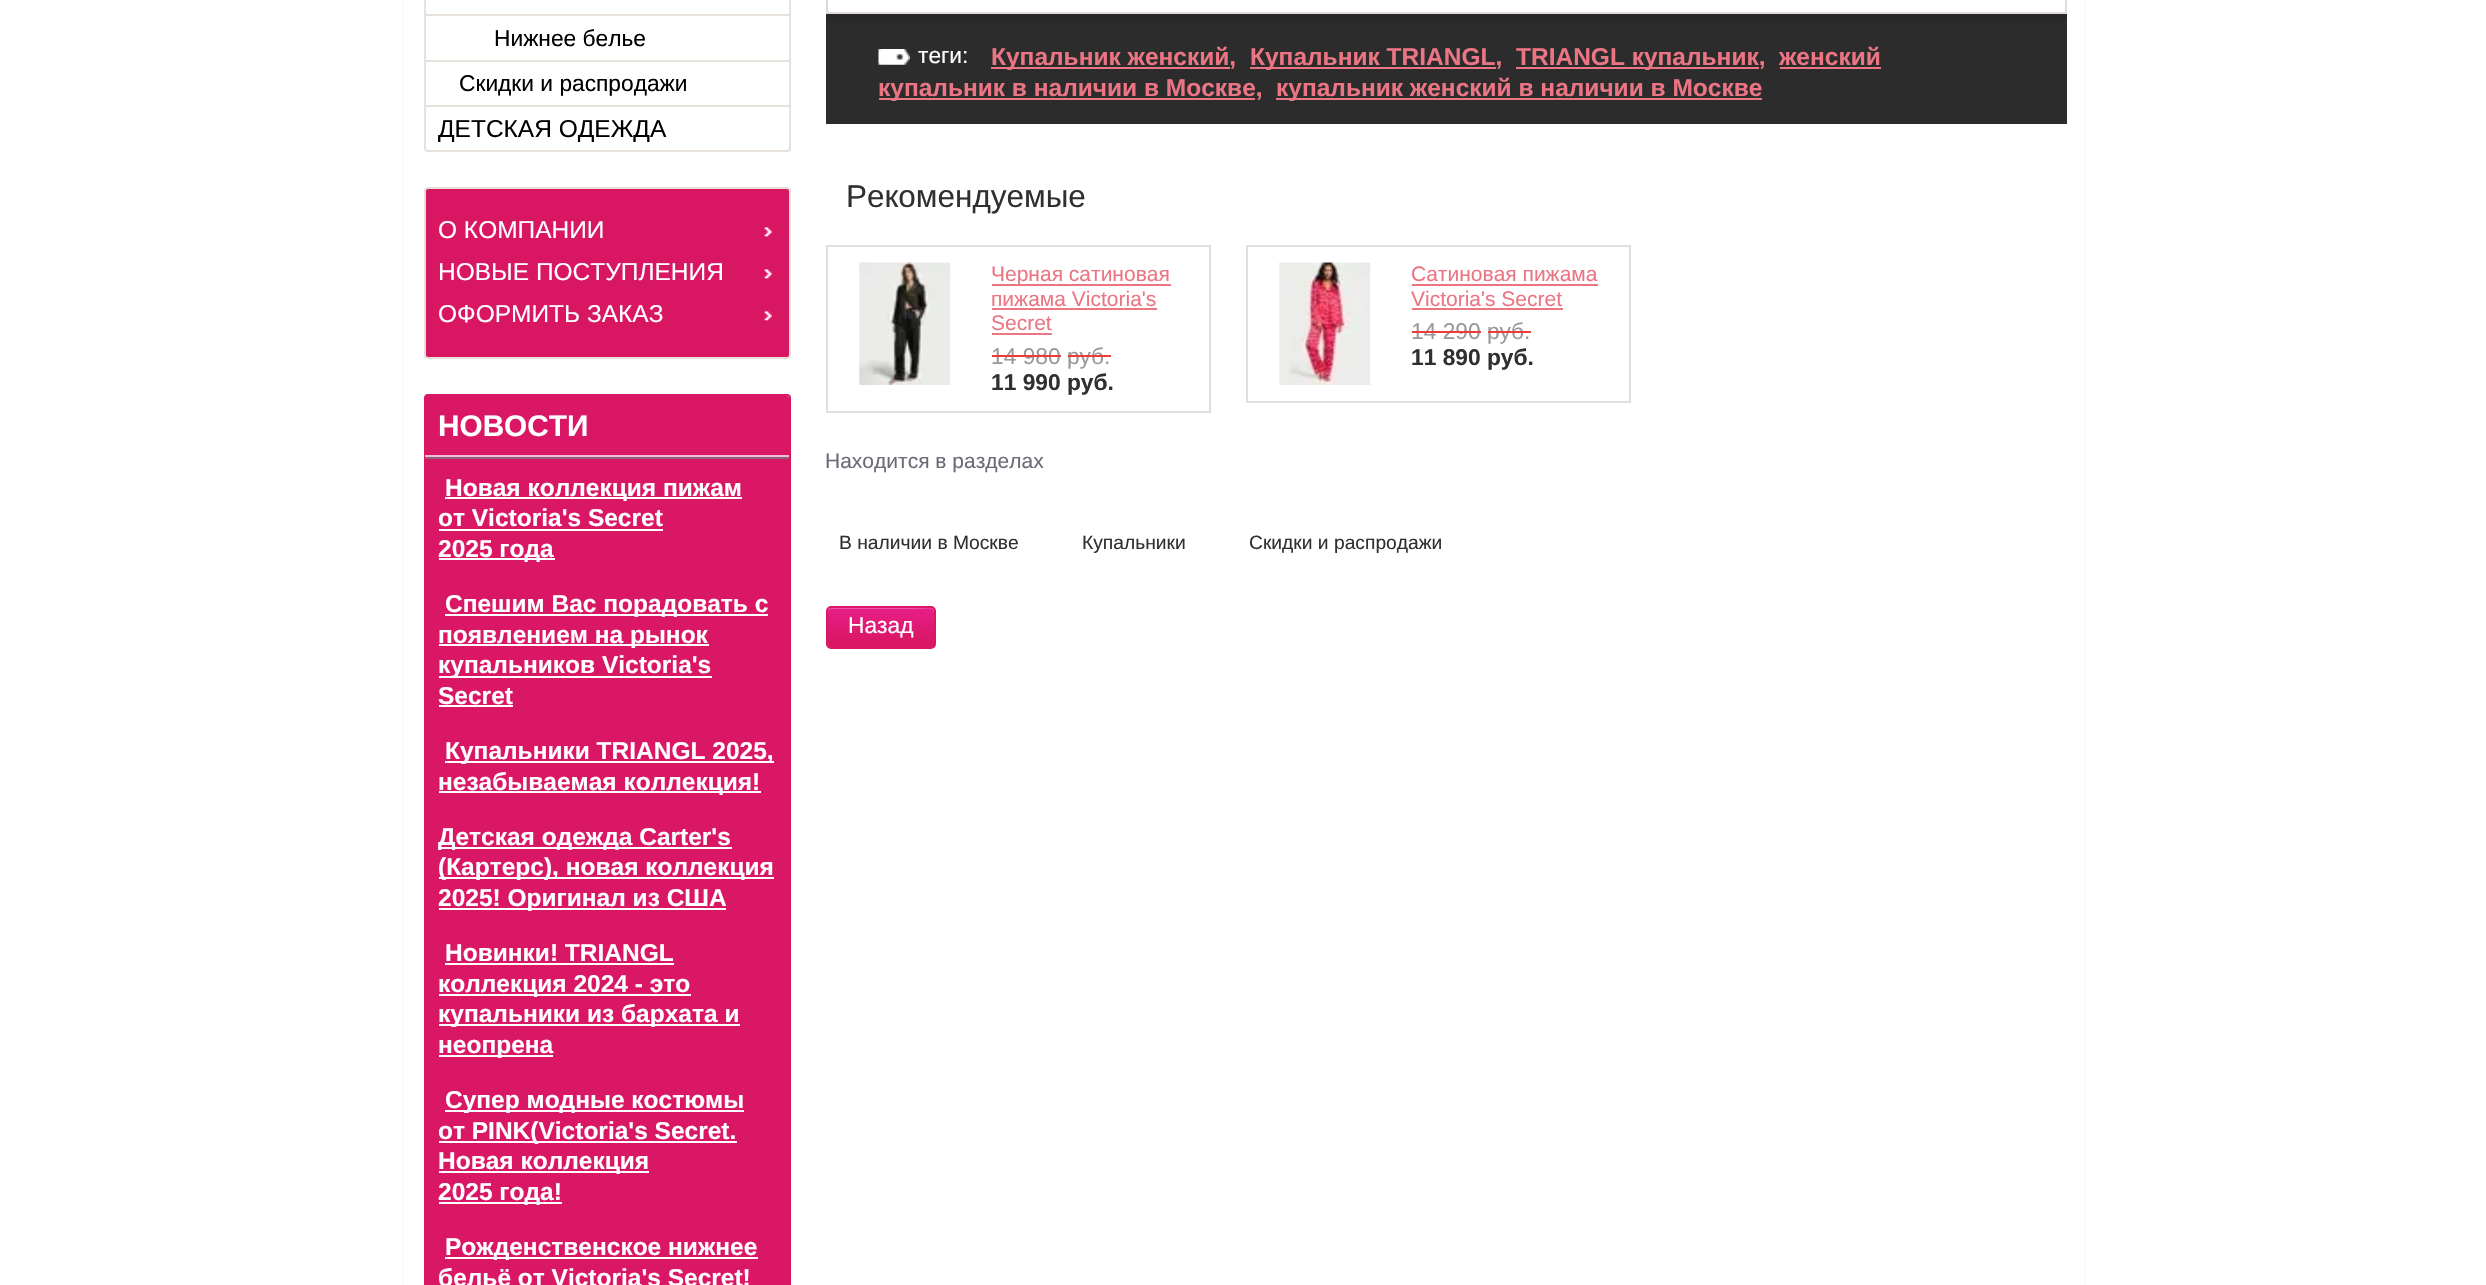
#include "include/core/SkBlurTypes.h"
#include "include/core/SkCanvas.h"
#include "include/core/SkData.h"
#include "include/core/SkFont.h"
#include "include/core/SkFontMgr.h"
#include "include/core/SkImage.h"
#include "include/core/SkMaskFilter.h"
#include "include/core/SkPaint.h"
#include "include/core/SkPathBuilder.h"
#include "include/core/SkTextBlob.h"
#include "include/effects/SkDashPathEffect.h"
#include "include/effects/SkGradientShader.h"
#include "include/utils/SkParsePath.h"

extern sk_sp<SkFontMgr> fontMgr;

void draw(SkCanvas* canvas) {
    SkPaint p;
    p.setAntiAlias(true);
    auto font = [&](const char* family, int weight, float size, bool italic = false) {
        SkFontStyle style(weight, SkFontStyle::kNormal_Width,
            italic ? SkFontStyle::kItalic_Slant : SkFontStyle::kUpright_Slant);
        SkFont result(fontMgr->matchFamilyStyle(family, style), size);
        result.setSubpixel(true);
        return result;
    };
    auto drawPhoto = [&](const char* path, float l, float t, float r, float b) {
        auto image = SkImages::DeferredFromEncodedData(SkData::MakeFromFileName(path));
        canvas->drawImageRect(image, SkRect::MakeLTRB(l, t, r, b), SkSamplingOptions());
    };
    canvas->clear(0xFFFFFFFF);
    p.setColor(0x33936682);
    p.setMaskFilter(SkMaskFilter::MakeBlur(kNormal_SkBlurStyle, 1));
    canvas->drawRoundRect(SkRect::MakeLTRB(404, -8, 2084, 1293), 5, 5, p);
    p.setMaskFilter(nullptr);
    p.setColor(0xFFFFFFFF);
    canvas->drawRect(SkRect::MakeLTRB(404, 0, 2084, 1285), p);
    p.setStyle(SkPaint::kStroke_Style);
    p.setStrokeWidth(2);
    p.setColor(0xFFE6E1DA);
    canvas->drawRoundRect(SkRect::MakeLTRB(425, -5, 790, 151), 3, 3, p);
    p.setStyle(SkPaint::kFill_Style);
    canvas->drawRect(SkRect::MakeLTRB(425, 14, 789, 16), p);
    auto font1 = font("Liberation Sans", 400, 22.75f);
    p.setColor(0xFF000000);
    canvas->drawString("Нижнее белье", 494, 46, font1, p);
    p.setColor(0xFFE6E1DA);
    canvas->drawRect(SkRect::MakeLTRB(425, 60, 789, 62), p);
    p.setColor(0xFF000000);
    canvas->drawString("Скидки и распродажи", 459, 91, font1, p);
    p.setColor(0xFFE6E1DA);
    canvas->drawRect(SkRect::MakeLTRB(425, 105, 789, 107), p);
    auto font2 = font("Liberation Sans", 400, 24.5f);
    p.setColor(0xFF000000);
    canvas->drawString("ДЕТСКАЯ ОДЕЖДА", 438, 137, font2, p);
    p.setColor(0xFFD91662);
    canvas->drawRoundRect(SkRect::MakeLTRB(425, 188, 790, 358), 3, 3, p);
    p.setStyle(SkPaint::kStroke_Style);
    p.setColor(0xFFE6E1DA);
    canvas->drawRoundRect(SkRect::MakeLTRB(425, 188, 790, 358), 3, 3, p);
    p.setStyle(SkPaint::kFill_Style);
    p.setColor(0xFFFFFFFF);
    canvas->drawString("О КОМПАНИИ", 438, 238, font2, p);
    drawPhoto("media/1.png", 764, 227, 772, 237);
    canvas->drawString("НОВЫЕ ПОСТУПЛЕНИЯ", 438, 280, font2, p);
    drawPhoto("media/1.png", 764, 269, 772, 279);
    canvas->drawString("ОФОРМИТЬ ЗАКАЗ", 438, 322, font2, p);
    drawPhoto("media/1.png", 764, 311, 772, 321);
    p.setColor(0xFFDA1765);
    canvas->drawRoundRect(SkRect::MakeLTRB(425, 396, 789, 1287), 2, 2, p);
    p.setStyle(SkPaint::kStroke_Style);
    canvas->drawRoundRect(SkRect::MakeLTRB(425, 395, 790, 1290), 3, 3, p);
    p.setStyle(SkPaint::kFill_Style);
    p.setColor(0xFFF4BAD0);
    canvas->drawRect(SkRect::MakeLTRB(425, 455, 789, 457), p);
    auto font3 = font("Liberation Sans", 700, 29.75f);
    p.setColor(0xFFFFFFFF);
    canvas->drawString("НОВОСТИ", 438, 436, font3, p);
    p.setColor(0xFF8D617B);
    canvas->drawRect(SkRect::MakeLTRB(425, 457, 789, 459), p);
    p.setColor(0xFFFFFFFF);
    canvas->drawRect(SkRect::MakeLTRB(445, 497, 742, 499), p);
    auto font4 = font("Liberation Sans", 700, 24.5f);
    canvas->drawString("Новая коллекция пижам", 445, 496, font4, p);
    canvas->drawString("от Victoria's Secret", 438, 526, font4, p);
    canvas->drawRect(SkRect::MakeLTRB(439, 529, 663, 531), p);
    canvas->drawRect(SkRect::MakeLTRB(439, 558, 555, 560), p);
    canvas->drawString("2025 года", 438, 557, font4, p);
    canvas->drawRect(SkRect::MakeLTRB(445, 614, 768, 616), p);
    canvas->drawString("Спешим Вас порадовать с", 445, 612, font4, p);
    canvas->drawRect(SkRect::MakeLTRB(439, 644, 709, 646), p);
    canvas->drawString("появлением на рынок", 438, 643, font4, p);
    canvas->drawRect(SkRect::MakeLTRB(439, 676, 712, 678), p);
    canvas->drawString("купальников Victoria's", 438, 673, font4, p);
    canvas->drawString("Secret", 438, 704, font4, p);
    canvas->drawRect(SkRect::MakeLTRB(439, 705, 513, 707), p);
    canvas->drawRect(SkRect::MakeLTRB(445, 761, 774, 763), p);
    canvas->drawString("Купальники TRIANGL 2025,", 445, 759, font4, p);
    canvas->drawRect(SkRect::MakeLTRB(439, 791, 761, 793), p);
    canvas->drawString("незабываемая коллекция!", 438, 790, font4, p);
    canvas->drawRect(SkRect::MakeLTRB(439, 847, 732, 849), p);
    canvas->drawString("Детская одежда Carter's", 438, 845, font4, p);
    canvas->drawRect(SkRect::MakeLTRB(439, 877, 774, 879), p);
    canvas->drawString("(Картерс), новая коллекция", 438, 875, font4, p);
    canvas->drawRect(SkRect::MakeLTRB(439, 908, 726, 910), p);
    canvas->drawString("2025! Оригинал из США", 438, 906, font4, p);
    canvas->drawString("Новинки! TRIANGL", 445, 961, font4, p);
    canvas->drawRect(SkRect::MakeLTRB(445, 963, 674, 965), p);
    canvas->drawRect(SkRect::MakeLTRB(439, 994, 691, 996), p);
    canvas->drawString("коллекция 2024 - это", 438, 992, font4, p);
    canvas->drawRect(SkRect::MakeLTRB(439, 1024, 740, 1026), p);
    canvas->drawString("купальники из бархата и", 438, 1022, font4, p);
    canvas->drawRect(SkRect::MakeLTRB(439, 1055, 553, 1057), p);
    canvas->drawString("неопрена", 438, 1053, font4, p);
    canvas->drawRect(SkRect::MakeLTRB(445, 1110, 744, 1112), p);
    canvas->drawString("Супер модные костюмы", 445, 1108, font4, p);
    canvas->drawRect(SkRect::MakeLTRB(439, 1141, 737, 1143), p);
    canvas->drawString("от PINK(Victoria's Secret.", 438, 1139, font4, p);
    canvas->drawRect(SkRect::MakeLTRB(439, 1171, 649, 1173), p);
    canvas->drawString("Новая коллекция", 438, 1169, font4, p);
    canvas->drawRect(SkRect::MakeLTRB(439, 1202, 562, 1204), p);
    canvas->drawString("2025 года!", 438, 1200, font4, p);
    canvas->drawRect(SkRect::MakeLTRB(445, 1257, 758, 1259), p);
    canvas->drawString("Рожденственское нижнее", 445, 1255, font4, p);
    canvas->drawString("бельё от Victoria's Secret!", 438, 1286, font4, p);
    p.setStyle(SkPaint::kStroke_Style);
    p.setColor(0xFFE3D7DF);
    canvas->drawRect(SkRect::MakeLTRB(827, -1, 2066, 13), p);
    p.setStyle(SkPaint::kFill_Style);
    p.setColor(0xFF282828);
    canvas->drawRect(SkRect::MakeLTRB(826, 14, 2067, 21), p);
    p.setColor(0xFF2C2C2C);
    canvas->drawRect(SkRect::MakeLTRB(826, 21, 2067, 124), p);
    drawPhoto("media/2.png", 878, 49, 910, 65);
    p.setColor(0xFFFFFFFF);
    canvas->drawString("теги:", 918, 63, font1, p);
    p.setColor(0xFFEC7584);
    canvas->drawRect(SkRect::MakeLTRB(991, 67, 1230, 69), p);
    canvas->drawString("Купальник женский,", 991, 65, font4, p);
    canvas->drawRect(SkRect::MakeLTRB(1250, 67, 1496, 69), p);
    canvas->drawString("Купальник TRIANGL,", 1250, 65, font4, p);
    canvas->drawRect(SkRect::MakeLTRB(1516, 67, 1759, 69), p);
    canvas->drawString("TRIANGL купальник,", 1516, 65, font4, p);
    canvas->drawString("женский", 1779, 65, font4, p);
    canvas->drawRect(SkRect::MakeLTRB(1780, 67, 1881, 69), p);
    canvas->drawRect(SkRect::MakeLTRB(879, 98, 1255, 100), p);
    canvas->drawString("купальник в наличии в Москве,", 878, 96, font4, p);
    canvas->drawRect(SkRect::MakeLTRB(1276, 98, 1762, 100), p);
    canvas->drawString("купальник женский в наличии в Москве", 1276, 96, font4, p);
    auto font5 = font("Liberation Sans", 400, 31.5f);
    p.setColor(0xFF303030);
    canvas->drawString("Рекомендуемые", 846, 207, font5, p);
    p.setStyle(SkPaint::kStroke_Style);
    p.setColor(0xFFDFDFDF);
    canvas->drawRect(SkRect::MakeLTRB(827, 246, 1210, 412), p);
    drawPhoto("media/3.png", 859, 262, 951, 385);
    p.setStyle(SkPaint::kFill_Style);
    p.setColor(0xFFEC7584);
    canvas->drawRect(SkRect::MakeLTRB(992, 284, 1171, 286), p);
    auto font6 = font("Liberation Sans", 400, 21);
    canvas->drawString("Черная сатиновая", 991, 281, font6, p);
    canvas->drawString("пижама Victoria's", 991, 306, font6, p);
    canvas->drawRect(SkRect::MakeLTRB(992, 308, 1157, 310), p);
    canvas->drawString("Secret", 991, 330, font6, p);
    canvas->drawRect(SkRect::MakeLTRB(992, 333, 1052, 335), p);
    p.setColor(0xFF9A9A9A);
    canvas->drawString("14 980 руб.", 991, 364, font1, p);
    p.setColor(0xFFEB3C3C);
    canvas->drawRect(SkRect::MakeLTRB(992, 355, 1061, 357), p);
    canvas->drawRect(SkRect::MakeLTRB(1068, 355, 1111, 357), p);
    auto font7 = font("Liberation Sans", 700, 22.75f);
    p.setColor(0xFF303030);
    canvas->drawString("11 990 руб.", 991, 390, font7, p);
    p.setStyle(SkPaint::kStroke_Style);
    p.setColor(0xFFDFDFDF);
    canvas->drawRect(SkRect::MakeLTRB(1247, 246, 1630, 402), p);
    drawPhoto("media/4.png", 1279, 262, 1371, 385);
    p.setStyle(SkPaint::kFill_Style);
    p.setColor(0xFFEC7584);
    canvas->drawString("Сатиновая пижама", 1411, 281, font6, p);
    canvas->drawRect(SkRect::MakeLTRB(1412, 284, 1598, 286), p);
    canvas->drawString("Victoria's Secret", 1411, 306, font6, p);
    canvas->drawRect(SkRect::MakeLTRB(1412, 308, 1563, 310), p);
    p.setColor(0xFF9A9A9A);
    canvas->drawString("14 290 руб.", 1411, 339, font1, p);
    p.setColor(0xFFEB3C3C);
    canvas->drawRect(SkRect::MakeLTRB(1412, 331, 1481, 333), p);
    canvas->drawRect(SkRect::MakeLTRB(1488, 331, 1531, 333), p);
    p.setColor(0xFF303030);
    canvas->drawString("11 890 руб.", 1411, 365, font7, p);
    p.setColor(0xFF6C6A76);
    canvas->drawString("Находится в разделах", 825, 468, font6, p);
    auto font8 = font("Liberation Sans", 400, 19.25f);
    p.setColor(0xFF303030);
    {
        const struct { const char* s; float x, y; } items[] = {
            {"В наличии в Москве", 839, 549},
            {"Купальники", 1082, 549},
            {"Скидки и распродажи", 1249, 549},
        };
        for (auto [s, x, y] : items) {
            canvas->drawString(s, x, y, font8, p);
        }
    }
    {
        const SkColor colors[] = {0xFFE71F89, 0xFFD91661, 0xFFDA1765};
        const float stops[] = {0, 0.9f, 1};
        const SkPoint ends[] = {{881, 607}, {881, 648}};
        p.setShader(SkGradientShader::MakeLinear(ends, colors, stops, 3, SkTileMode::kClamp));
        p.setAlpha(255);
    }
    canvas->drawRoundRect(SkRect::MakeLTRB(828, 607, 935, 648), 4, 4, p);
    p.setShader(nullptr);
    p.setColor(0x40FFFFFF);
    canvas->drawPath(SkPathBuilder().moveTo(831, 609).lineTo(914, 609).cubicTo(936, 609, 934, 605, 934, 623).lineTo(934, 647).cubicTo(935, 646, 935, 645, 935, 644).lineTo(935, 611).cubicTo(935, 609, 933, 607, 931, 607).lineTo(832, 607).cubicTo(830, 607, 828, 609, 828, 611).lineTo(828, 612).cubicTo(828, 611, 829, 609, 831, 609).close().detach(), p);
    p.setStyle(SkPaint::kStroke_Style);
    p.setColor(0xFFDA1765);
    canvas->drawRoundRect(SkRect::MakeLTRB(827, 607, 935, 648), 4, 4, p);
    p.setStyle(SkPaint::kFill_Style);
    p.setColor(0xFFFFFFFF);
    canvas->drawString("Назад", 848, 633, font1, p);
}
